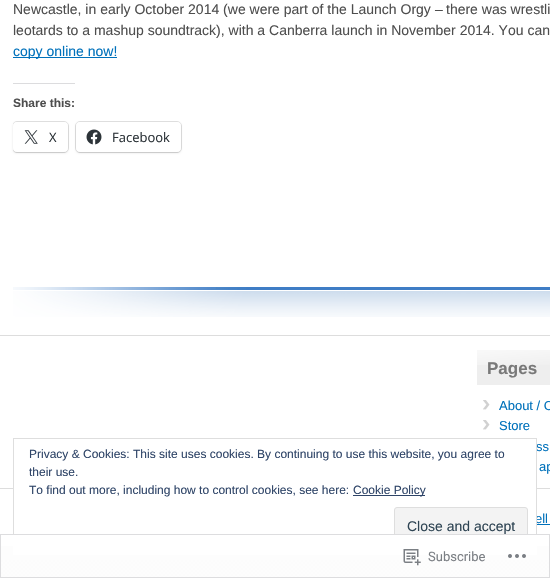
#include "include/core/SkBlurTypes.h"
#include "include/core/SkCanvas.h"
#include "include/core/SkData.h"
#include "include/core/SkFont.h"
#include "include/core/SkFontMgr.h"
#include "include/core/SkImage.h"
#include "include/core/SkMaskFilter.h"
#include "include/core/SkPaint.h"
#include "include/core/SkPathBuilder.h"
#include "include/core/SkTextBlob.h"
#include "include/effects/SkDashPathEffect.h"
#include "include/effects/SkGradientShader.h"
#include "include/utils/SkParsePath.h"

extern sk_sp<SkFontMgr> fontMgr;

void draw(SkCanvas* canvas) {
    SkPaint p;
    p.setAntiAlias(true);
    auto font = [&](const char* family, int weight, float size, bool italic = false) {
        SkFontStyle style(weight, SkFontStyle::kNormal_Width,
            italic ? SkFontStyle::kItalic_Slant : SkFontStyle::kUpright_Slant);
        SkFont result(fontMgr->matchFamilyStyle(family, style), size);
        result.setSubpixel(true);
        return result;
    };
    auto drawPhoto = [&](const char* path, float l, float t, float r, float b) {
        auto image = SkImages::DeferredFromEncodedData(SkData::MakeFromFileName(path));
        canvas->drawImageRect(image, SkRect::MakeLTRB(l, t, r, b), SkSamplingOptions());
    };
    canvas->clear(0xFFE5E5E5);
    drawPhoto("media/1.png", 0, 546, 550, 578);
    p.setColor(0xFFFFFFFF);
    canvas->drawRect(SkRect::MakeLTRB(0, 0, 550, 335), p);
    auto font1 = font("Liberation Sans", 400, 14);
    p.setColor(0xFF4E4E4E);
    canvas->drawString("Newcastle, in early October 2014 (we were part of the Launch Orgy", 13, 14, font1, p);
    auto font2 = font("Liberation Sans", 400, 14, true);
    canvas->drawString("–", 435, 14, font2, p);
    canvas->drawString("there was wrestli", 446, 14, font1, p);
    canvas->drawString("leotards to a mashup soundtrack), with a Canberra launch in November 2014. You can", 13, 35, font1, p);
    p.setColor(0xFF0071BB);
    canvas->drawRect(SkRect::MakeLTRB(13, 57, 117, 58), p);
    canvas->drawString("copy online now!", 13, 56, font1, p);
    p.setColor(0xFFDCDCDE);
    canvas->drawRect(SkRect::MakeLTRB(13, 83, 75, 84), p);
    auto font3 = font("Liberation Sans", 700, 12);
    p.setColor(0xFF4E4E4E);
    canvas->drawString("Share this:", 13, 107, font3, p);
    canvas->save();
    canvas->clipRect(SkRect::MakeLTRB(13, 0, 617, 227));
    p.setStyle(SkPaint::kStroke_Style);
    p.setStrokeWidth(1);
    p.setColor(0xFFE0E0E0);
    canvas->drawRoundRect(SkRect::MakeLTRB(12.5f, 121.5f, 68.5f, 152.5f), 4.5f, 4.5f, p);
    canvas->restore();
    p.setStyle(SkPaint::kFill_Style);
    p.setColor(0x1F000000);
    p.setMaskFilter(SkMaskFilter::MakeBlur(kNormal_SkBlurStyle, 1));
    canvas->drawRoundRect(SkRect::MakeLTRB(13, 123, 68, 153), 4, 4, p);
    p.setMaskFilter(nullptr);
    p.setColor(0xFFFFFFFF);
    canvas->drawRoundRect(SkRect::MakeLTRB(13, 122, 68, 152), 4, 4, p);
    drawPhoto("media/2.png", 24, 130, 38, 144);
    auto font4 = font("Open Sans", 400, 13);
    p.setColor(0xFF2C3338);
    canvas->drawString("X", 49, 142, font4, p);
    p.setStyle(SkPaint::kStroke_Style);
    p.setColor(0xFFE0E0E0);
    canvas->drawRoundRect(SkRect::MakeLTRB(75.5f, 121.5f, 181.5f, 152.5f), 4.5f, 4.5f, p);
    p.setStyle(SkPaint::kFill_Style);
    p.setColor(0x1F000000);
    p.setMaskFilter(SkMaskFilter::MakeBlur(kNormal_SkBlurStyle, 1));
    canvas->drawRoundRect(SkRect::MakeLTRB(76, 123, 181, 153), 4, 4, p);
    p.setMaskFilter(nullptr);
    p.setColor(0xFFFFFFFF);
    canvas->drawRoundRect(SkRect::MakeLTRB(76, 122, 181, 152), 4, 4, p);
    drawPhoto("media/3.png", 86, 129, 102, 145);
    p.setColor(0xFF2C3338);
    canvas->drawString("Facebook", 112, 142, font4, p);
    drawPhoto("media/4.png", 13, 287, 550, 317);
    {
        const struct { float l, t, r, b; SkColor color; } items[] = {
            {0, 336, 550, 546, 0xFFFFFFFF},
            {0, 335, 550, 336, 0xFFDDDDDD},
            {477, 365, 550, 385, 0xFFEEEEEE},
        };
        for (auto [l, t, r, b, color] : items) {
            p.setColor(color);
            canvas->drawRect(SkRect::MakeLTRB(l, t, r, b), p);
        }
    }
    drawPhoto("media/5.png", 477, 350, 550, 365);
    auto font5 = font("Liberation Sans", 700, 17);
    p.setColor(0xFF797979);
    canvas->drawString("Pages", 487, 374, font5, p);
    drawPhoto("media/6.png", 483, 400, 490, 410);
    auto font6 = font("Liberation Sans", 400, 13);
    p.setColor(0xFF0071BB);
    canvas->drawString("About / C", 499, 410, font6, p);
    drawPhoto("media/6.png", 483, 420, 490, 430);
    {
        const struct { const char* s; float x, y; } items[] = {
            {"Store", 499, 430},
            {"ss", 536, 451},
            {"ap", 539, 471},
        };
        for (auto [s, x, y] : items) {
            canvas->drawString(s, x, y, font6, p);
        }
    }
    p.setColor(0xFFDDDDDD);
    canvas->drawRect(SkRect::MakeLTRB(0, 488, 550, 489), p);
    p.setColor(0xFF0071BB);
    canvas->drawString("ell", 535, 523, font6, p);
    canvas->drawRect(SkRect::MakeLTRB(537, 524, 550, 525), p);
    p.setColor(0xFFFFFFFF);
    canvas->drawRect(SkRect::MakeLTRB(14, 488, 536, 554), p);
    p.setStyle(SkPaint::kStroke_Style);
    p.setColor(0xFFDEDEDE);
    canvas->drawRect(SkRect::MakeLTRB(13.5f, 438.5f, 536.5f, 554.5f), p);
    auto font7 = font("Liberation Sans", 400, 12);
    p.setStyle(SkPaint::kFill_Style);
    p.setColor(0xFF2E4467);
    {
        const struct { const char* s; float x, y; } items[] = {
            {"Privacy & Cookies: This site uses cookies. By continuing to use this website, you agree to", 29, 458},
            {"their use.", 29, 476},
            {"To find out more, including how to control cookies, see here:", 29, 494},
        };
        for (auto [s, x, y] : items) {
            canvas->drawString(s, x, y, font7, p);
        }
    }
    canvas->drawRect(SkRect::MakeLTRB(353, 495, 425, 496), p);
    canvas->drawString("Cookie Policy", 353, 494, font7, p);
    p.setColor(0xFFF3F3F3);
    canvas->drawRoundRect(SkRect::MakeLTRB(394.5f, 507.5f, 527.5f, 545.5f), 2.5f, 2.5f, p);
    p.setStyle(SkPaint::kStroke_Style);
    p.setColor(0xFFDEDEDE);
    canvas->drawRoundRect(SkRect::MakeLTRB(394.5f, 507.5f, 527.5f, 545.5f), 2.5f, 2.5f, p);
    p.setStyle(SkPaint::kFill_Style);
    p.setColor(0xFF2E4453);
    canvas->drawString("Close and accept", 407, 531, font1, p);
    p.setColor(0xFAFFFFFF);
    canvas->drawRect(SkRect::MakeLTRB(0, 534, 550, 578), p);
    p.setStyle(SkPaint::kStroke_Style);
    p.setColor(0xFADCDCDE);
    canvas->drawRect(SkRect::MakeLTRB(0.5f, 534.5f, 549.5f, 577.5f), p);
    drawPhoto("media/7.png", 403, 549, 421, 566);
    auto font8 = font("Roboto", 400, 13);
    p.setStyle(SkPaint::kFill_Style);
    p.setColor(0xFF7B7F84);
    canvas->drawString("Subscribe", 428, 561, font8, p);
    drawPhoto("media/8.png", 508, 554, 526, 558);
}
